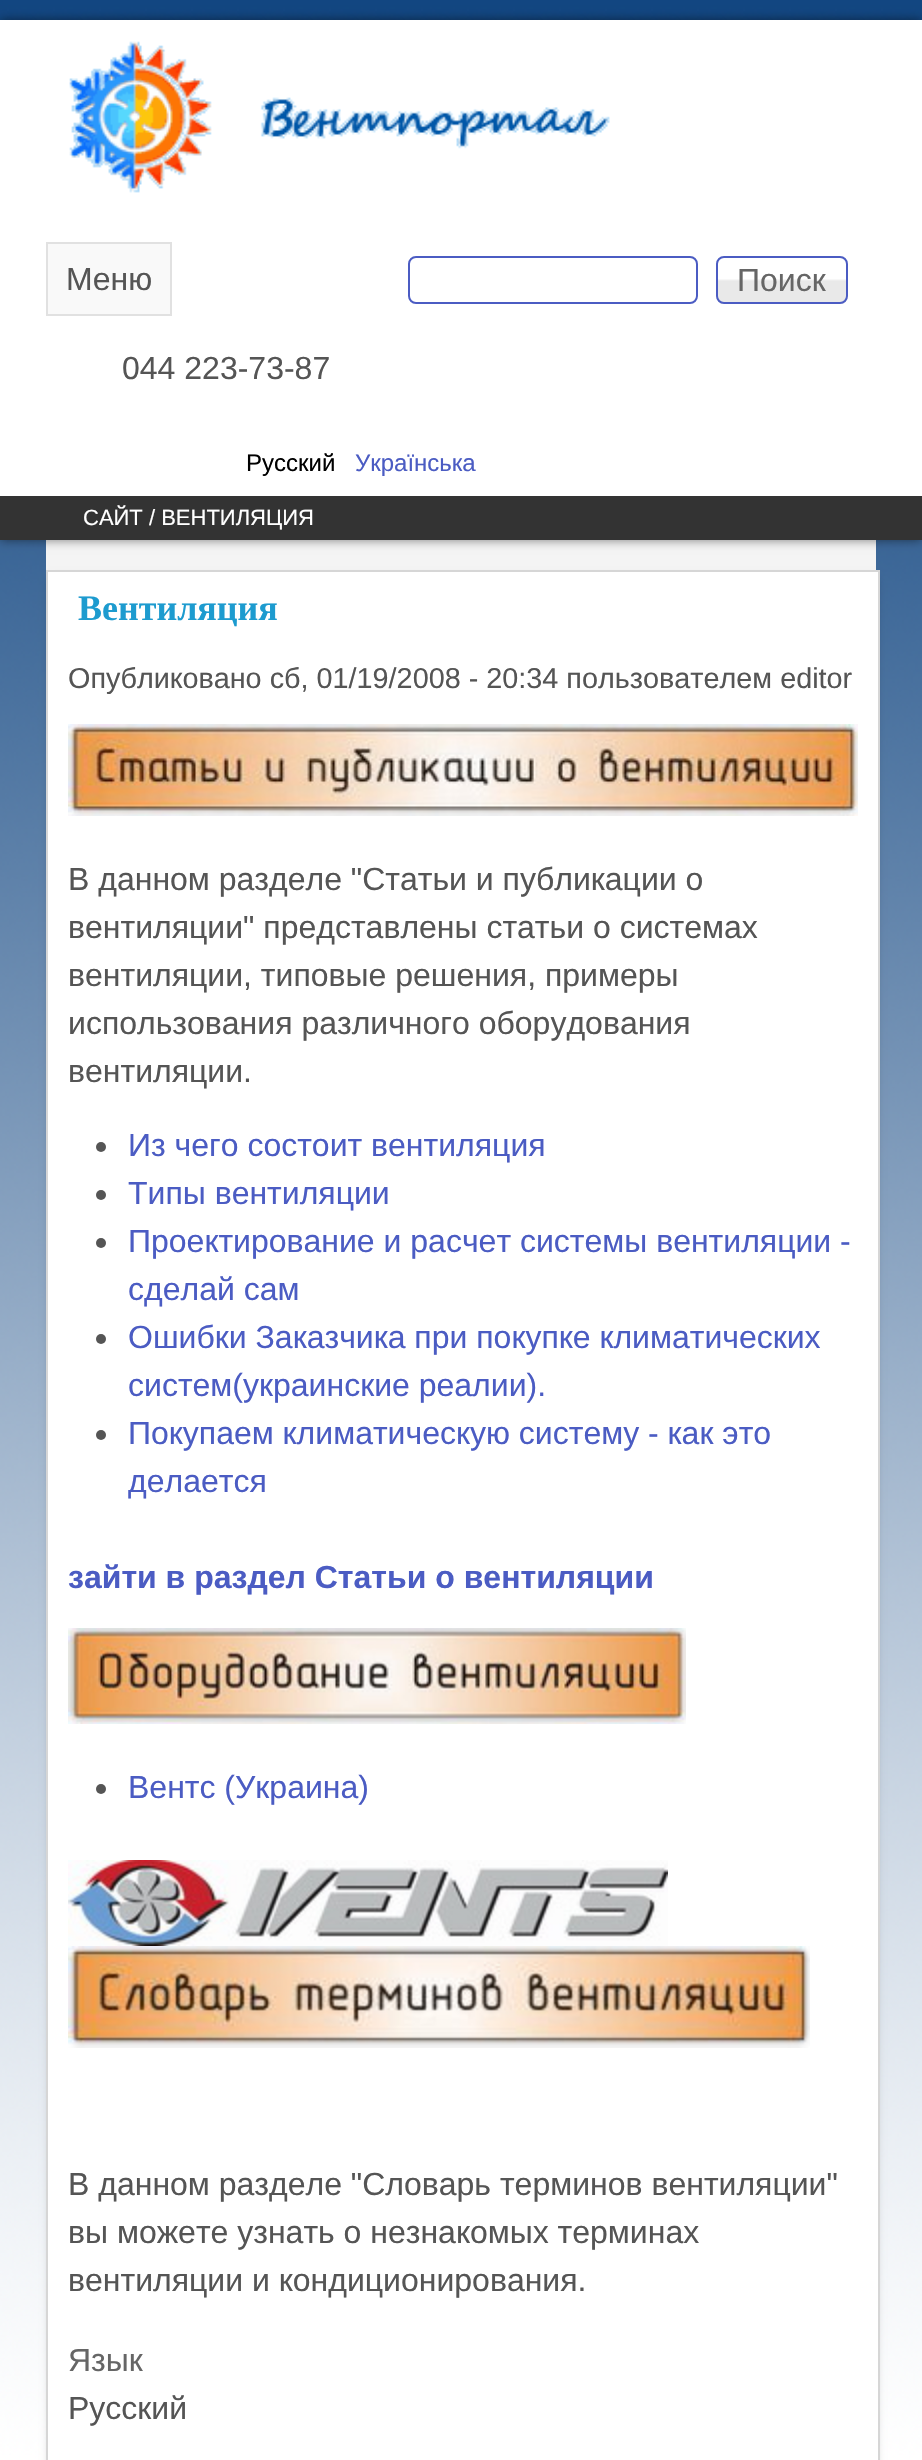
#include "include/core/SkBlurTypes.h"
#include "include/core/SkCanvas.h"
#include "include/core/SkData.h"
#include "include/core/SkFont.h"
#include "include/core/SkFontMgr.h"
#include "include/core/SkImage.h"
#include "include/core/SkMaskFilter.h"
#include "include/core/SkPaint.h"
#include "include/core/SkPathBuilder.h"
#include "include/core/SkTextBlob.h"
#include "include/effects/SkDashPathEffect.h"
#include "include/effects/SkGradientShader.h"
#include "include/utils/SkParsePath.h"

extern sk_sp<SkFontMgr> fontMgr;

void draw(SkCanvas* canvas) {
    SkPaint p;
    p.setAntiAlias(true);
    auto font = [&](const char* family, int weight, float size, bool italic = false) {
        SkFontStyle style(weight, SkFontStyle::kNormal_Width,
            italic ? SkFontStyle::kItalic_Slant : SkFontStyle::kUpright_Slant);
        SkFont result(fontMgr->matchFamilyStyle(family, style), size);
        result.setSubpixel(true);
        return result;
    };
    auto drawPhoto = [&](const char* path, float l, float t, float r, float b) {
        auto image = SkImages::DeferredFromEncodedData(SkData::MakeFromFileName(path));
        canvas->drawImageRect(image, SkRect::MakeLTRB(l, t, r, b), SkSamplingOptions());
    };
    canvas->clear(0xFFFFFFFF);
    drawPhoto("media/1.png", 0, 0, 922, 2460);
    p.setColor(0xFFF4F4F4);
    canvas->drawRect(SkRect::MakeLTRB(46, 540, 876, 570), p);
    p.setColor(0x80000000);
    p.setMaskFilter(SkMaskFilter::MakeBlur(kNormal_SkBlurStyle, 5));
    canvas->drawRect(SkRect::MakeLTRB(0, 20, 922, 540), p);
    p.setMaskFilter(nullptr);
    p.setColor(0xFFFFFFFF);
    canvas->drawRect(SkRect::MakeLTRB(0, 20, 922, 496), p);
    p.setColor(0xFFF9F9F9);
    canvas->drawRect(SkRect::MakeLTRB(47, 243, 171, 315), p);
    p.setStyle(SkPaint::kStroke_Style);
    p.setStrokeWidth(2);
    p.setColor(0xFFE1E1E1);
    canvas->drawRect(SkRect::MakeLTRB(47, 243, 171, 315), p);
    auto font1 = font("Liberation Sans", 400, 32);
    p.setStyle(SkPaint::kFill_Style);
    p.setColor(0xFF555555);
    canvas->drawString("Меню", 66, 290, font1, p);
    drawPhoto("media/2.png", 69, 41, 610, 193);
    p.setStyle(SkPaint::kStroke_Style);
    p.setColor(0xFF4B5CC3);
    canvas->drawRoundRect(SkRect::MakeLTRB(409, 257, 697, 303), 7, 7, p);
    drawPhoto("media/3.png", 716, 279, 848, 304);
    canvas->drawRoundRect(SkRect::MakeLTRB(717, 257, 847, 303), 7, 7, p);
    p.setStyle(SkPaint::kFill_Style);
    p.setColor(0xFF666666);
    canvas->drawString("Поиск", 737, 291, font1, p);
    p.setColor(0xFF555555);
    canvas->drawString("044 223-73-87", 122, 379, font1, p);
    auto font2 = font("Liberation Sans", 400, 24);
    p.setColor(0xFF000000);
    canvas->drawString("Русский", 246, 471, font2, p);
    p.setColor(0xFF4B5CC3);
    canvas->drawString("Українська", 355, 471, font2, p);
    p.setColor(0xFF333333);
    canvas->drawRect(SkRect::MakeLTRB(0, 496, 922, 540), p);
    auto font3 = font("Liberation Sans", 400, 22);
    p.setColor(0xFFFFFFFF);
    canvas->drawString("САЙТ / ВЕНТИЛЯЦИЯ", 83, 525, font3, p);
    p.setColor(0x4D000000);
    p.setMaskFilter(SkMaskFilter::MakeBlur(kNormal_SkBlurStyle, 4));
    canvas->drawRect(SkRect::MakeLTRB(50, 578, 876, 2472), p);
    p.setMaskFilter(nullptr);
    p.setColor(0xFFFFFFFF);
    canvas->drawRect(SkRect::MakeLTRB(47, 571, 879, 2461), p);
    p.setStyle(SkPaint::kStroke_Style);
    p.setColor(0xFFD6D6D6);
    canvas->drawRect(SkRect::MakeLTRB(47, 571, 879, 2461), p);
    auto font4 = font("Liberation Serif", 700, 36);
    p.setStyle(SkPaint::kFill_Style);
    p.setColor(0xFF1D9BCF);
    canvas->drawString("Вентиляция", 78, 620, font4, p);
    auto font5 = font("Liberation Sans", 400, 28.8f);
    p.setColor(0xFF555555);
    canvas->drawString("Опубликовано сб, 01/19/2008 - 20:34 пользователем editor", 68, 688, font5, p);
    drawPhoto("media/4.png", 68, 724, 858, 816);
    {
        const struct { const char* s; float x, y; } items[] = {
            {"В данном разделе \"Статьи и публикации о", 68, 890},
            {"вентиляции\" представлены статьи о системах", 68, 938},
            {"вентиляции, типовые решения, примеры", 68, 986},
            {"использования различного оборудования", 68, 1034},
            {"вентиляции.", 68, 1082},
        };
        for (auto [s, x, y] : items) {
            canvas->drawString(s, x, y, font1, p);
        }
    }
    canvas->drawCircle(101, 1147, 5, p);
    p.setColor(0xFF4B5CC3);
    canvas->drawString("Из чего состоит вентиляция", 128, 1156, font1, p);
    p.setColor(0xFF555555);
    canvas->drawCircle(101, 1195, 5, p);
    p.setColor(0xFF4B5CC3);
    canvas->drawString("Типы вентиляции", 128, 1204, font1, p);
    p.setColor(0xFF555555);
    canvas->drawCircle(101, 1243, 5, p);
    p.setColor(0xFF4B5CC3);
    canvas->drawString("Проектирование и расчет системы вентиляции -", 128, 1252, font1, p);
    canvas->drawString("сделай сам", 128, 1300, font1, p);
    p.setColor(0xFF555555);
    canvas->drawCircle(101, 1339, 5, p);
    p.setColor(0xFF4B5CC3);
    canvas->drawString("Ошибки Заказчика при покупке климатических", 128, 1348, font1, p);
    canvas->drawString("систем(украинские реалии).", 128, 1396, font1, p);
    p.setColor(0xFF555555);
    canvas->drawCircle(101, 1435, 5, p);
    p.setColor(0xFF4B5CC3);
    canvas->drawString("Покупаем климатическую систему - как это", 128, 1444, font1, p);
    canvas->drawString("делается", 128, 1492, font1, p);
    auto font6 = font("Liberation Sans", 700, 32);
    canvas->drawString("зайти в раздел Статьи о вентиляции", 68, 1588, font6, p);
    drawPhoto("media/5.png", 68, 1628, 686, 1724);
    p.setColor(0xFF555555);
    canvas->drawCircle(101, 1789, 5, p);
    p.setColor(0xFF4B5CC3);
    canvas->drawString("Вентс (Украина)", 128, 1798, font1, p);
    drawPhoto("media/6.png", 68, 1860, 668, 1946);
    drawPhoto("media/7.png", 68, 1946, 810, 2048);
    p.setColor(0xFF555555);
    {
        const struct { const char* s; float x, y; } items[] = {
            {"В данном разделе \"Словарь терминов вентиляции\"", 68, 2195},
            {"вы можете узнать о незнакомых терминах", 68, 2243},
            {"вентиляции и кондиционирования.", 68, 2291},
        };
        for (auto [s, x, y] : items) {
            canvas->drawString(s, x, y, font1, p);
        }
    }
    p.setColor(0xFF666666);
    canvas->drawString("Язык", 68, 2371, font1, p);
    p.setColor(0xFF555555);
    canvas->drawString("Русский", 68, 2419, font1, p);
}
